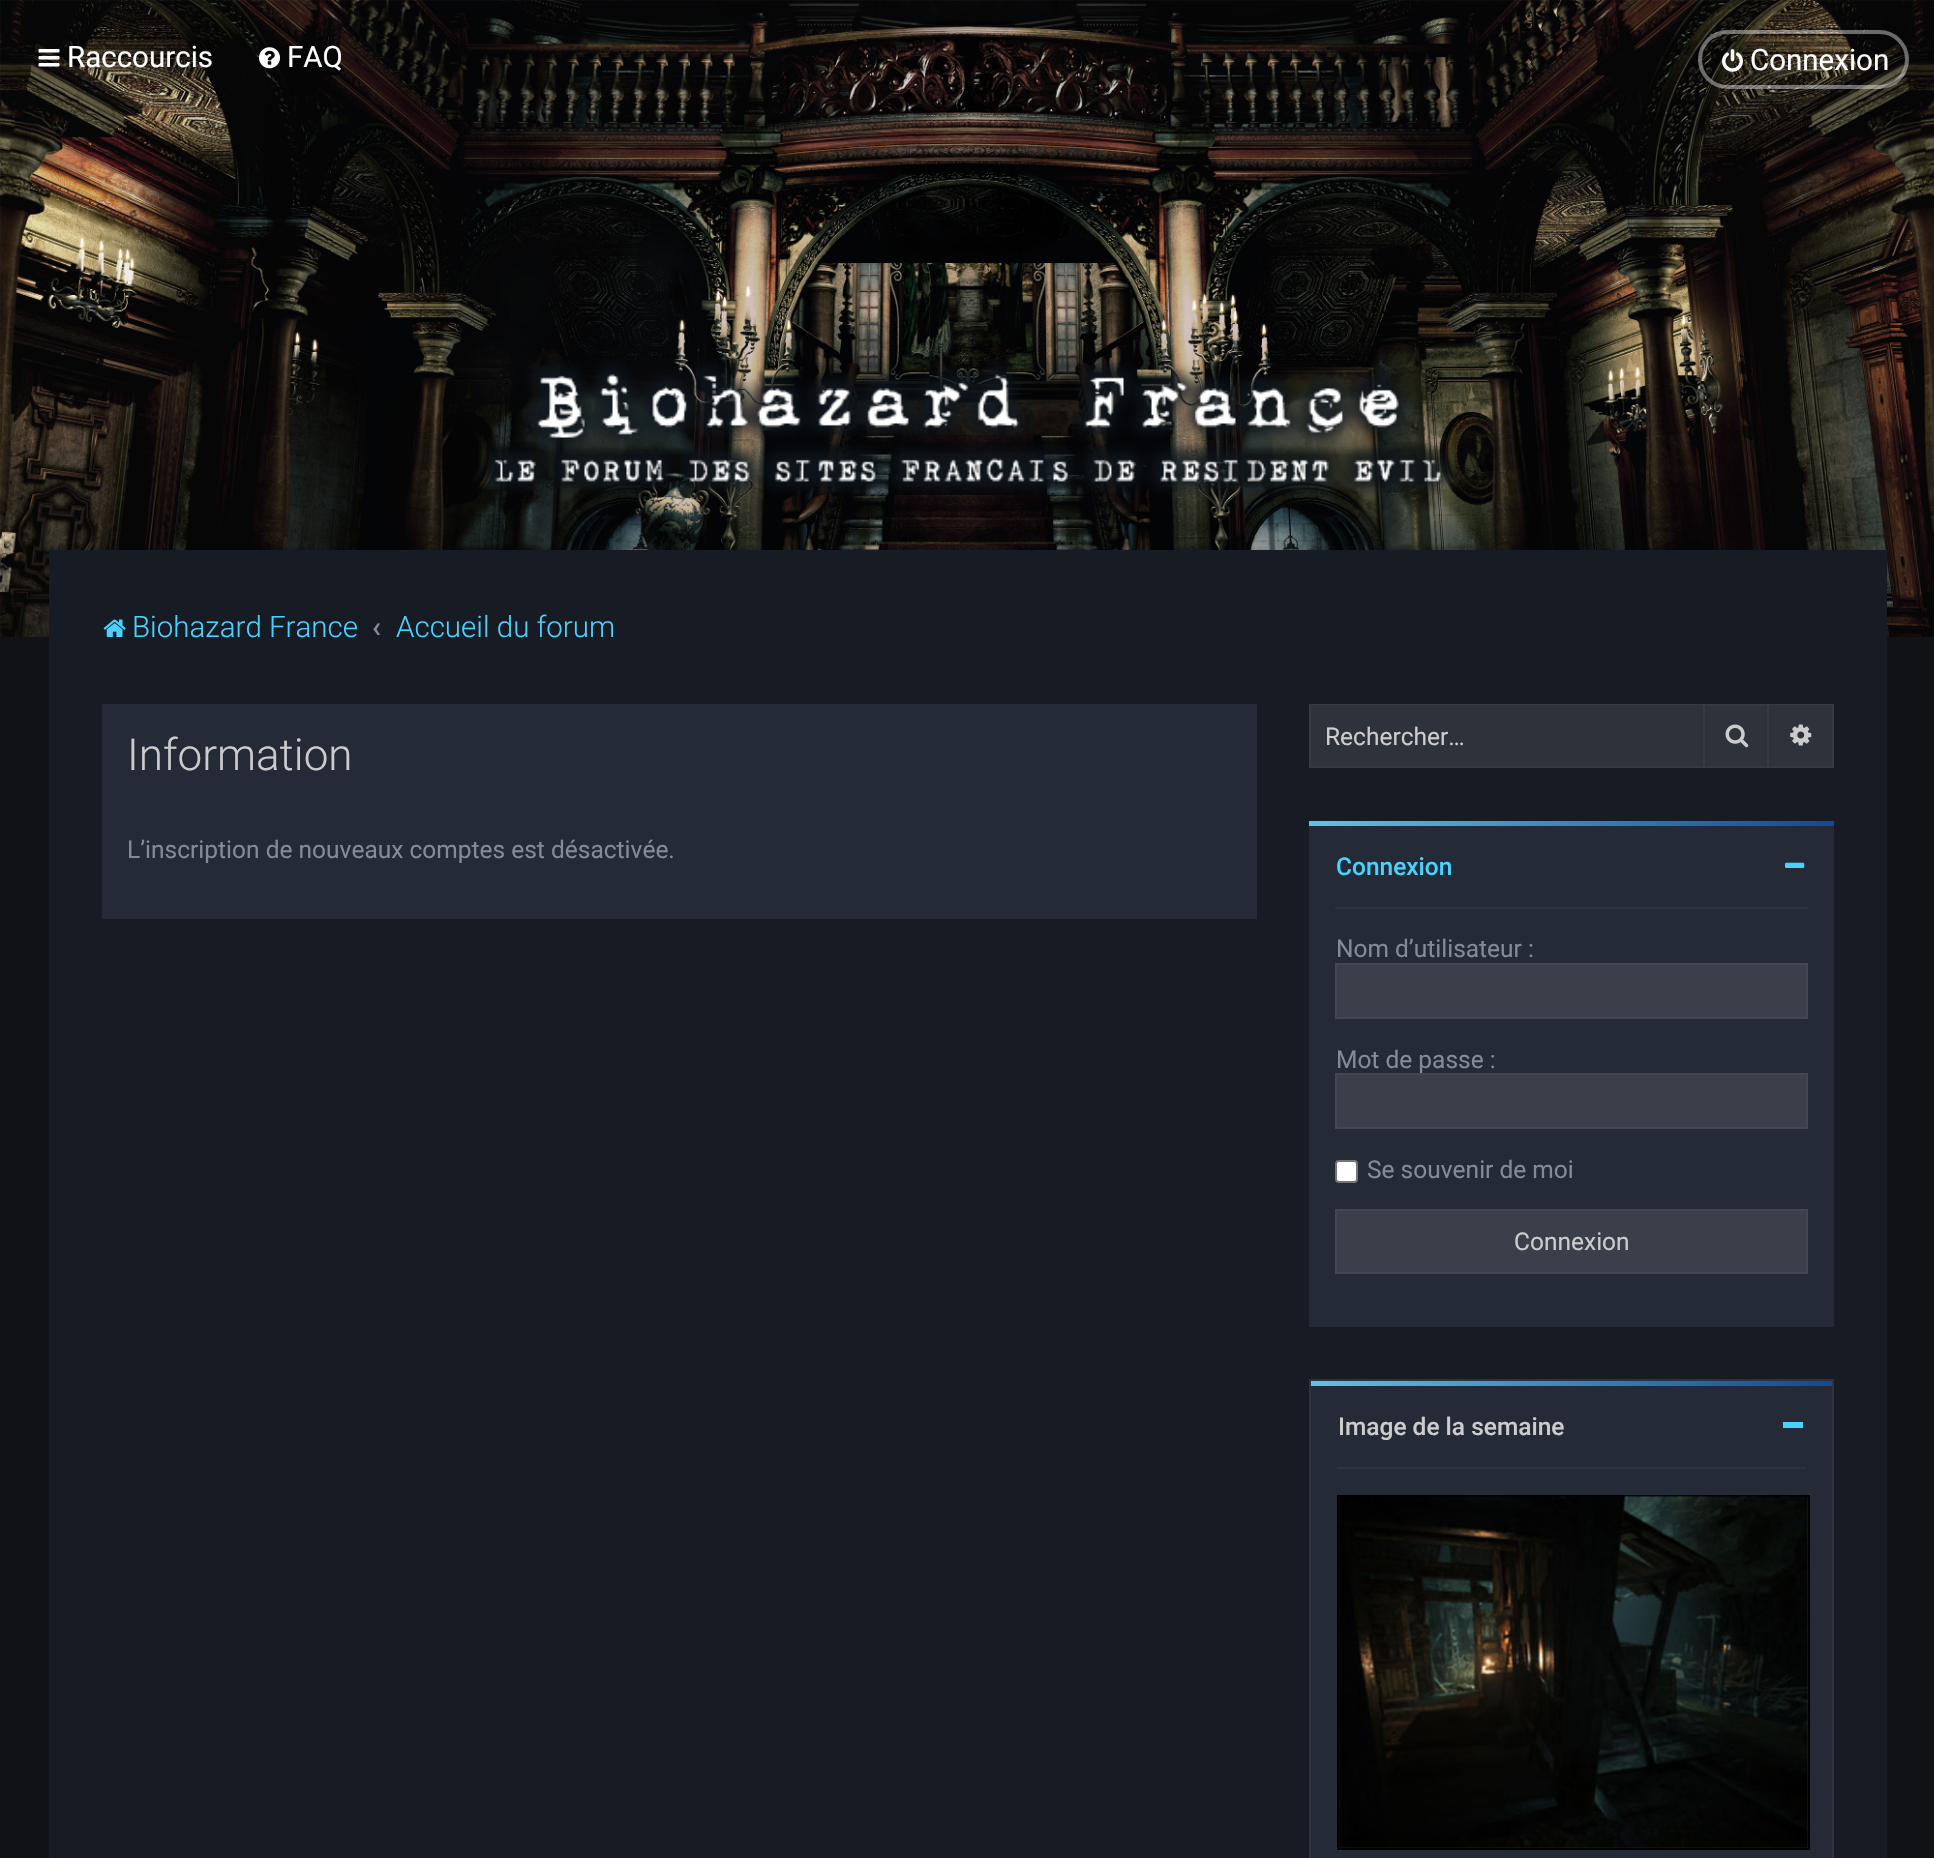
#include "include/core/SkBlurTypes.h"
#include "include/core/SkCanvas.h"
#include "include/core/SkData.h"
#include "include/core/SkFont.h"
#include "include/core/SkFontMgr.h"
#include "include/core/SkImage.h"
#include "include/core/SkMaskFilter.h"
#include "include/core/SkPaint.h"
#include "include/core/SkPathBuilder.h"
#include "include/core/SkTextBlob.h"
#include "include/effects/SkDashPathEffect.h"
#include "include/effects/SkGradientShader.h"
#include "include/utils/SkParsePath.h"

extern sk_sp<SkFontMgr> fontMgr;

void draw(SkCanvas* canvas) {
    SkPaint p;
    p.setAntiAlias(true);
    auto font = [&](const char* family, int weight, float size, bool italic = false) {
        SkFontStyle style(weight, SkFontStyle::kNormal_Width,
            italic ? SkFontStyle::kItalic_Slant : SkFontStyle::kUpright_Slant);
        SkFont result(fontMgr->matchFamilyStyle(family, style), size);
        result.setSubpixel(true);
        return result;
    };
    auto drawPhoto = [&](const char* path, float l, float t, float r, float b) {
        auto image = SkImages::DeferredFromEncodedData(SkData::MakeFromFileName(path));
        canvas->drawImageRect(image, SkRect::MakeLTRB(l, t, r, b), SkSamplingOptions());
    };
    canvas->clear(0xFF101216);
    drawPhoto("media/1.png", 0, 0, 1934, 637);
    drawPhoto("media/2.png", 482, 359, 1451, 497);
    drawPhoto("media/3.png", 38, 49, 60, 67);
    auto font1 = font("Roboto", 400, 29.5f);
    p.setColor(0xFFFFFFFF);
    canvas->drawString("Raccourcis", 67, 67, font1, p);
    drawPhoto("media/4.png", 259, 47, 280, 69);
    canvas->drawString("FAQ", 287, 67, font1, p);
    p.setStyle(SkPaint::kStroke_Style);
    p.setStrokeWidth(4);
    p.setColor(0x66FFFFFF);
    canvas->drawRoundRect(SkRect::MakeLTRB(1700, 32, 1907, 87), 27.5f, 27.5f, p);
    drawPhoto("media/5.png", 1722, 49, 1743, 72);
    p.setStyle(SkPaint::kFill_Style);
    p.setColor(0xFFFFFFFF);
    canvas->drawString("Connexion", 1750, 70, font1, p);
    p.setColor(0x0D000000);
    p.setMaskFilter(SkMaskFilter::MakeBlur(kNormal_SkBlurStyle, 4.5f));
    canvas->drawRect(SkRect::MakeLTRB(49, 550, 1887, 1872), p);
    p.setMaskFilter(nullptr);
    p.setColor(0xFF171B24);
    canvas->drawRect(SkRect::MakeLTRB(49, 550, 1887, 1858), p);
    drawPhoto("media/6.png", 103, 619, 126, 637);
    auto font2 = font("Roboto", 300, 29.5f);
    p.setColor(0xFF4AD2FF);
    canvas->drawString("Biohazard France", 132, 637, font2, p);
    auto font3 = font("Roboto", 500, 29.5f);
    p.setColor(0xFF838B98);
    canvas->drawString("‹", 372, 637, font3, p);
    p.setColor(0xFF4AD2FF);
    canvas->drawString("Accueil du forum", 396, 637, font2, p);
    p.setColor(0xFF242A36);
    canvas->drawRect(SkRect::MakeLTRB(102, 704, 1257, 919), p);
    auto font4 = font("Roboto", 300, 44);
    p.setColor(0xFFCCCCCC);
    canvas->drawString("Information", 127, 770, font4, p);
    auto font5 = font("Roboto", 400, 24.5f);
    p.setColor(0xFF838B98);
    canvas->drawString("L’inscription de nouveaux comptes est désactivée.", 127, 858, font5, p);
    p.setColor(0xFF2E323A);
    canvas->drawRect(SkRect::MakeLTRB(1309, 704, 1703, 768), p);
    p.setColor(0xFF363A42);
    canvas->drawPath(SkPathBuilder().moveTo(1309, 704).lineTo(1703, 704).lineTo(1703, 705).lineTo(1311, 705).close().detach(), p);
    canvas->drawPath(SkPathBuilder().moveTo(1703, 768).lineTo(1309, 768).lineTo(1311, 766).lineTo(1703, 766).close().detach(), p);
    p.setColor(0x0AFFFFFF);
    canvas->drawPath(SkPathBuilder().moveTo(1309, 768).lineTo(1309, 704).lineTo(1311, 705).lineTo(1311, 766).close().detach(), p);
    p.setColor(0xFFCCCCCC);
    canvas->drawString("Rechercher…", 1325, 745, font5, p);
    p.setColor(0xFF2E323A);
    canvas->drawRect(SkRect::MakeLTRB(1704, 705, 1768, 767), p);
    p.setStyle(SkPaint::kStroke_Style);
    p.setStrokeWidth(2);
    p.setColor(0xFF363A42);
    canvas->drawRect(SkRect::MakeLTRB(1704, 705, 1768, 767), p);
    drawPhoto("media/7.png", 1725, 724, 1749, 748);
    p.setStyle(SkPaint::kFill_Style);
    p.setColor(0xFF2E323A);
    canvas->drawRect(SkRect::MakeLTRB(1769, 704, 1834, 768), p);
    p.setColor(0xFF363A42);
    canvas->drawPath(SkPathBuilder().moveTo(1769, 704).lineTo(1834, 704).lineTo(1832, 705).lineTo(1769, 705).close().detach(), p);
    canvas->drawPath(SkPathBuilder().moveTo(1834, 704).lineTo(1834, 768).lineTo(1832, 766).lineTo(1832, 705).close().detach(), p);
    p.setColor(0x0AFFFFFF);
    canvas->drawPath(SkPathBuilder().moveTo(1834, 768).lineTo(1769, 768).lineTo(1769, 766).lineTo(1832, 766).close().detach(), p);
    drawPhoto("media/8.png", 1790, 724, 1812, 746);
    p.setColor(0xFF242A36);
    canvas->drawRect(SkRect::MakeLTRB(1309, 826, 1834, 1327), p);
    {
        const SkColor colors[] = {0xFF5FC3E4, 0xFF154793};
        const float stops[] = {0, 1};
        const SkPoint ends[] = {{1309, 823}, {1834, 823}};
        p.setShader(SkGradientShader::MakeLinear(ends, colors, stops, 2, SkTileMode::kClamp));
        p.setAlpha(255);
    }
    canvas->drawRect(SkRect::MakeLTRB(1309, 821, 1834, 826), p);
    auto font6 = font("Roboto", 500, 24.5f);
    p.setShader(nullptr);
    p.setColor(0xFF4AD2FF);
    canvas->drawString("Connexion", 1336, 875, font6, p);
    drawPhoto("media/9.png", 1785, 862, 1805, 868);
    p.setColor(0xFF2D333E);
    canvas->drawRect(SkRect::MakeLTRB(1335, 907, 1808, 909), p);
    p.setColor(0xFF838B98);
    canvas->drawString("Nom d’utilisateur :", 1336, 957, font5, p);
    p.setColor(0xFF3A3F4A);
    canvas->drawRect(SkRect::MakeLTRB(1336, 964, 1807, 1018), p);
    p.setStyle(SkPaint::kStroke_Style);
    p.setColor(0xFF424751);
    canvas->drawRect(SkRect::MakeLTRB(1336, 964, 1807, 1018), p);
    p.setStyle(SkPaint::kFill_Style);
    p.setColor(0xFF838B98);
    canvas->drawString("Mot de passe :", 1336, 1068, font5, p);
    p.setColor(0xFF3A3F4A);
    canvas->drawRect(SkRect::MakeLTRB(1336, 1074, 1807, 1128), p);
    p.setStyle(SkPaint::kStroke_Style);
    p.setColor(0xFF424751);
    canvas->drawRect(SkRect::MakeLTRB(1336, 1074, 1807, 1128), p);
    p.setStyle(SkPaint::kFill_Style);
    p.setColor(0xFFFFFFFF);
    canvas->drawRoundRect(SkRect::MakeLTRB(1336, 1161, 1357, 1182), 3, 3, p);
    p.setStyle(SkPaint::kStroke_Style);
    p.setColor(0xFF767676);
    canvas->drawRoundRect(SkRect::MakeLTRB(1336, 1161, 1357, 1182), 3, 3, p);
    p.setStyle(SkPaint::kFill_Style);
    p.setColor(0xFF838B98);
    canvas->drawString("Se souvenir de moi", 1367, 1178, font5, p);
    p.setColor(0xFF3A3F4A);
    canvas->drawRect(SkRect::MakeLTRB(1336, 1210, 1807, 1273), p);
    p.setStyle(SkPaint::kStroke_Style);
    p.setColor(0xFF424751);
    canvas->drawRect(SkRect::MakeLTRB(1336, 1210, 1807, 1273), p);
    p.setStyle(SkPaint::kFill_Style);
    p.setColor(0xFFCCCCCC);
    canvas->drawString("Connexion", 1514, 1250, font5, p);
    p.setColor(0xFF242A36);
    canvas->drawRect(SkRect::MakeLTRB(1311, 1386, 1832, 1858), p);
    p.setStyle(SkPaint::kStroke_Style);
    p.setColor(0xFF2D333E);
    canvas->drawRect(SkRect::MakeLTRB(1310, 1380, 1833, 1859), p);
    p.setStyle(SkPaint::kFill_Style);
    {
        const SkColor colors[] = {0xFF5FC3E4, 0xFF154793};
        const float stops[] = {0, 1};
        const SkPoint ends[] = {{1311, 1383}, {1832, 1383}};
        p.setShader(SkGradientShader::MakeLinear(ends, colors, stops, 2, SkTileMode::kClamp));
        p.setAlpha(255);
    }
    canvas->drawRect(SkRect::MakeLTRB(1311, 1381, 1832, 1386), p);
    p.setShader(nullptr);
    p.setColor(0xFFCCCCCC);
    canvas->drawString("Image de la semaine", 1338, 1435, font6, p);
    p.setColor(0xFF4AD2FF);
    canvas->drawRect(SkRect::MakeLTRB(1783, 1422, 1803, 1428), p);
    p.setColor(0xFF2D333E);
    canvas->drawRect(SkRect::MakeLTRB(1337, 1467, 1806, 1469), p);
    p.setStyle(SkPaint::kStroke_Style);
    p.setColor(0xFF000000);
    canvas->drawRect(SkRect::MakeLTRB(1338, 1496, 1809, 1849), p);
    drawPhoto("media/10.png", 1339, 1495, 1809, 1848);
}
